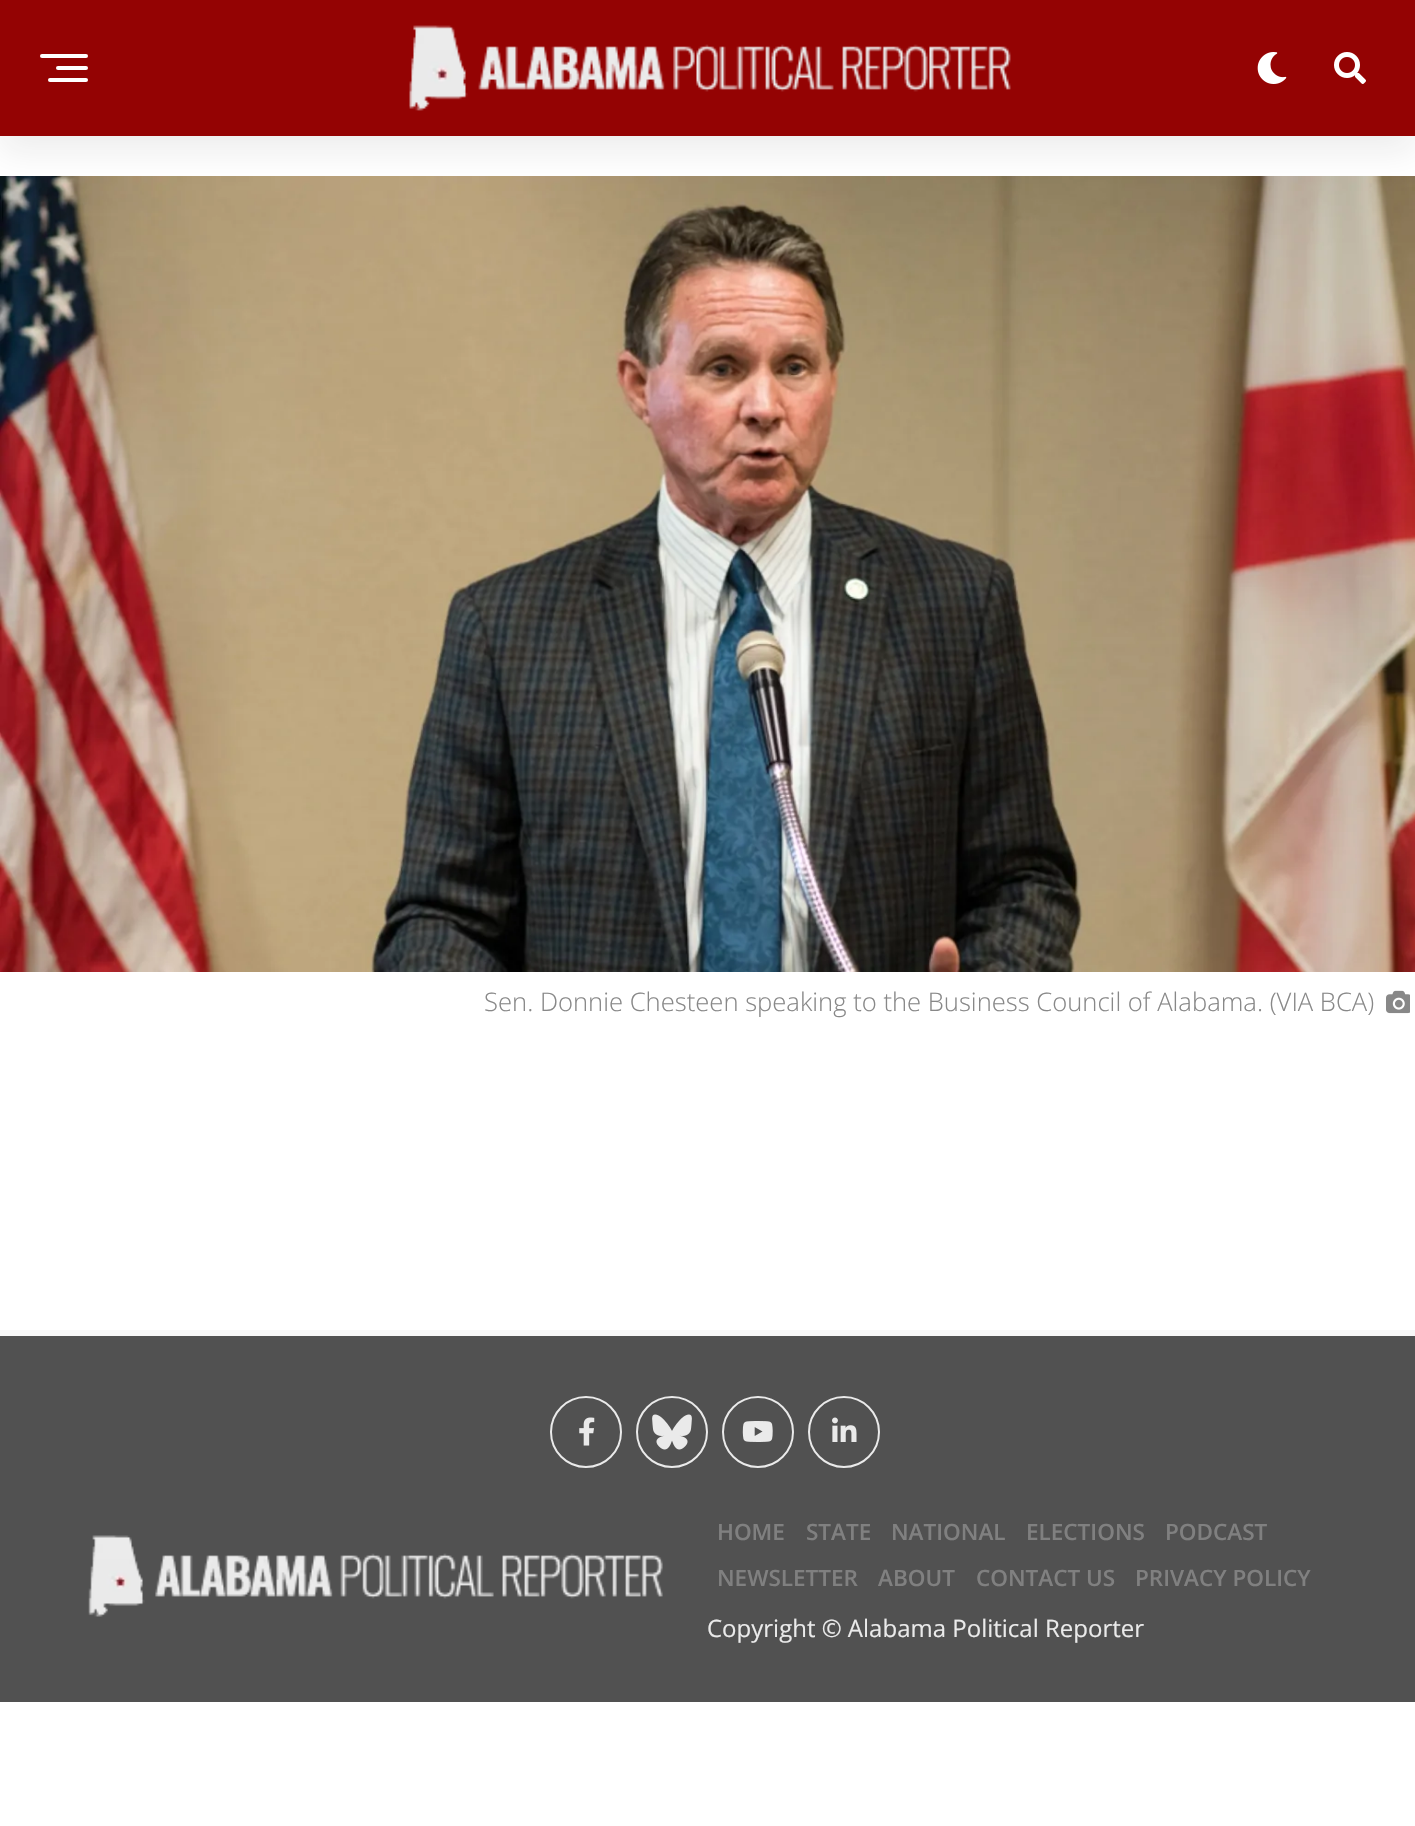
#include "include/core/SkBlurTypes.h"
#include "include/core/SkCanvas.h"
#include "include/core/SkData.h"
#include "include/core/SkFont.h"
#include "include/core/SkFontMgr.h"
#include "include/core/SkImage.h"
#include "include/core/SkMaskFilter.h"
#include "include/core/SkPaint.h"
#include "include/core/SkPathBuilder.h"
#include "include/core/SkTextBlob.h"
#include "include/effects/SkDashPathEffect.h"
#include "include/effects/SkGradientShader.h"
#include "include/utils/SkParsePath.h"

extern sk_sp<SkFontMgr> fontMgr;

void draw(SkCanvas* canvas) {
    SkPaint p;
    p.setAntiAlias(true);
    auto font = [&](const char* family, int weight, float size, bool italic = false) {
        SkFontStyle style(weight, SkFontStyle::kNormal_Width,
            italic ? SkFontStyle::kItalic_Slant : SkFontStyle::kUpright_Slant);
        SkFont result(fontMgr->matchFamilyStyle(family, style), size);
        result.setSubpixel(true);
        return result;
    };
    auto drawPhoto = [&](const char* path, float l, float t, float r, float b) {
        auto image = SkImages::DeferredFromEncodedData(SkData::MakeFromFileName(path));
        canvas->drawImageRect(image, SkRect::MakeLTRB(l, t, r, b), SkSamplingOptions());
    };
    canvas->clear(0xFFFFFFFF);
    drawPhoto("media/4.png", 0, 176, 1415, 972);
    p.setColor(0x1415151E);
    p.setMaskFilter(SkMaskFilter::MakeBlur(kNormal_SkBlurStyle, 16));
    canvas->drawRect(SkRect::MakeLTRB(0, 16, 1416, 152), p);
    p.setMaskFilter(nullptr);
    p.setColor(0xFF940303);
    canvas->drawRect(SkRect::MakeLTRB(0, 0, 1415, 136), p);
    p.setColor(0xFFFFFFFF);
    canvas->drawRoundRect(SkRect::MakeLTRB(40, 54, 88, 58), 2, 2, p);
    canvas->drawRoundRect(SkRect::MakeLTRB(56, 66, 88, 70), 2, 2, p);
    canvas->drawRoundRect(SkRect::MakeLTRB(48, 78, 88, 82), 2, 2, p);
    drawPhoto("media/1.png", 409, 25, 1011, 111);
    drawPhoto("media/2.png", 1257, 52, 1287, 84);
    drawPhoto("media/3.png", 1334, 52, 1366, 84);
    auto font1 = font("Open Sans", 300, 25.6f);
    p.setColor(0xFF888888);
    canvas->drawString("Sen. Donnie Chesteen speaking to the Business Council of Alabama. (VIA BCA)", 484, 1011, font1, p);
    drawPhoto("media/5.png", 1386, 990, 1410, 1014);
    p.setColor(0xFF515151);
    canvas->drawRect(SkRect::MakeLTRB(0, 1336, 1415, 1702), p);
    p.setColor(0xFFF7F7F7);
    canvas->drawRect(SkRect::MakeLTRB(0, 1330, 1415, 1336), p);
    p.setStyle(SkPaint::kStroke_Style);
    p.setStrokeWidth(2);
    p.setColor(0xFFEAEAEA);
    canvas->drawCircle(586, 1432, 35, p);
    drawPhoto("media/6.png", 579, 1417, 595, 1446);
    canvas->drawCircle(672, 1432, 35, p);
    drawPhoto("media/7.png", 652, 1414, 692, 1450);
    canvas->drawCircle(758, 1432, 35, p);
    drawPhoto("media/8.png", 742, 1421, 773, 1442);
    canvas->drawCircle(844, 1432, 35, p);
    drawPhoto("media/9.png", 832, 1417, 857, 1442);
    drawPhoto("media/10.png", 88, 1535, 663, 1617);
    auto font2 = font("Open Sans", 600, 22.5f);
    p.setStyle(SkPaint::kFill_Style);
    p.setColor(0xFF808080);
    {
        const struct { const char* s; float x, y; } items[] = {
            {"HOME", 717, 1540},
            {"STATE", 806, 1540},
            {"NATIONAL", 891, 1540},
            {"ELECTIONS", 1026, 1540},
            {"PODCAST", 1165, 1540},
            {"NEWSLETTER", 717, 1586},
            {"ABOUT", 878, 1586},
            {"CONTACT US", 976, 1586},
            {"PRIVACY POLICY", 1135, 1586},
        };
        for (auto [s, x, y] : items) {
            canvas->drawString(s, x, y, font2, p);
        }
    }
    auto font3 = font("Open Sans", 400, 24);
    p.setColor(0xFFEAEAEA);
    canvas->drawString("Copyright © Alabama Political Reporter", 707, 1637, font3, p);
}
